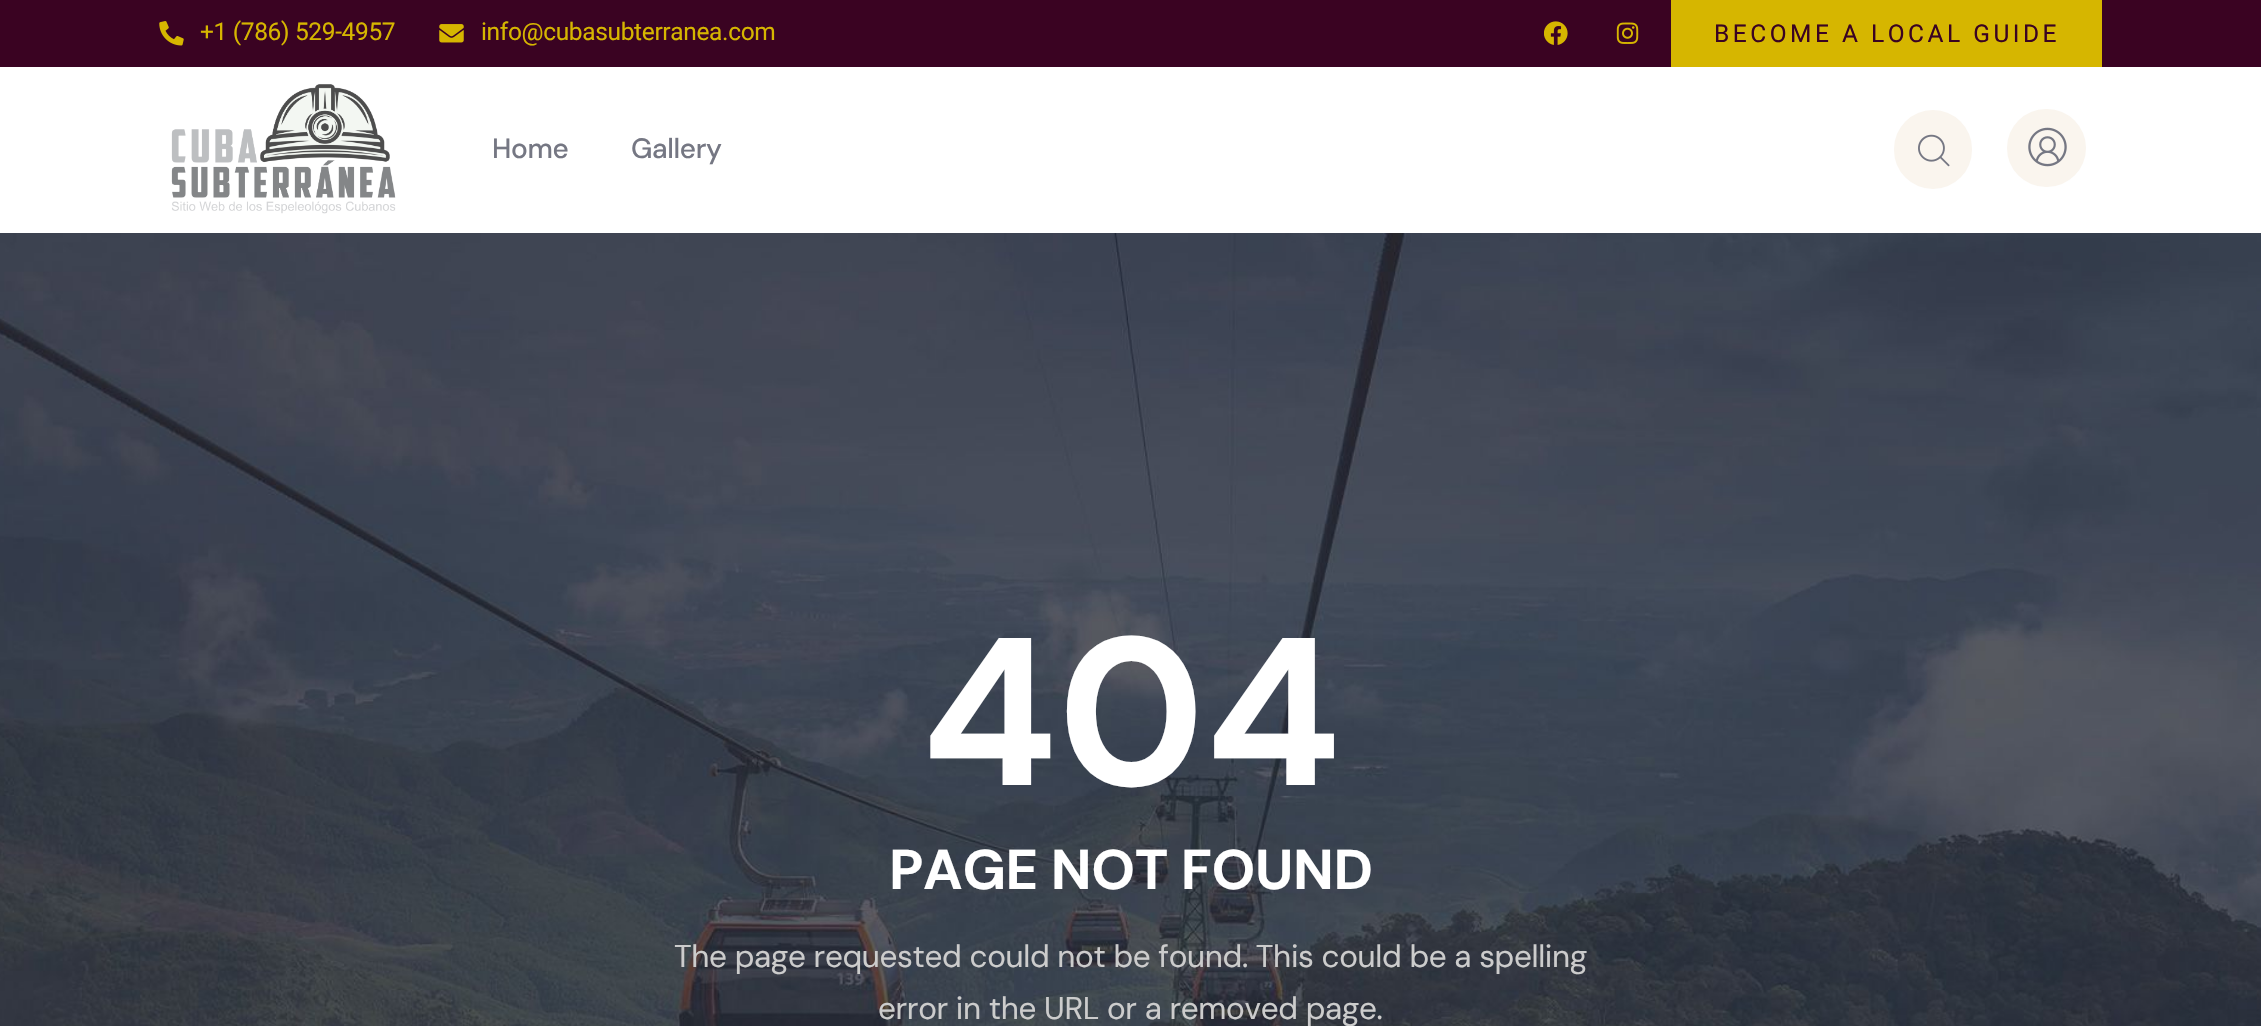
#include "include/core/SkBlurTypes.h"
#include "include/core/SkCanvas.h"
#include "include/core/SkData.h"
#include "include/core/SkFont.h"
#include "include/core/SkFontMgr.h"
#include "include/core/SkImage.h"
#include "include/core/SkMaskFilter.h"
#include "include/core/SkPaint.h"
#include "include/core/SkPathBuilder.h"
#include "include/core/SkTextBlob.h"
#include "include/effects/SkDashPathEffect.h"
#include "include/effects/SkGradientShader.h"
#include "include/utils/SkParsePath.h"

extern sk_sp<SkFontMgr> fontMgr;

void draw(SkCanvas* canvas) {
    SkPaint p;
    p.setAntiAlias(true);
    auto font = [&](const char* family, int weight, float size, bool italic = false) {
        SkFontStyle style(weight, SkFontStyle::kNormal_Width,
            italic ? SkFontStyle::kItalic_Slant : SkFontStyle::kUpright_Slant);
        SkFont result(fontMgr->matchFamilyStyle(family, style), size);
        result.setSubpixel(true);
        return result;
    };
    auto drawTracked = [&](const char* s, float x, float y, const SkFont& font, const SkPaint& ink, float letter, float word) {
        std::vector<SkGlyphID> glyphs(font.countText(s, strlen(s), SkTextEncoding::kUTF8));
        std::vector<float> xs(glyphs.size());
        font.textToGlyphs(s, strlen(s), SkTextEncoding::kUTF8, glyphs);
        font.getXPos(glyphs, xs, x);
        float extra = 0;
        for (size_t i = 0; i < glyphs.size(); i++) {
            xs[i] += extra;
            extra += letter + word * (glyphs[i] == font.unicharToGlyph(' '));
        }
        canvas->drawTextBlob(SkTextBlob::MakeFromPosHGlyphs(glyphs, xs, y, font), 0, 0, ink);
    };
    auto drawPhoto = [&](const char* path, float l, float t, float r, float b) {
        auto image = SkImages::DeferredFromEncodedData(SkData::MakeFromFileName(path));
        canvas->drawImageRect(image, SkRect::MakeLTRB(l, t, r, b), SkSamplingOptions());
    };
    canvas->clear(0xFFFFFFFF);
    p.setColor(0xFF3A0322);
    canvas->drawRect(SkRect::MakeLTRB(0, 0, 2261, 67), p);
    drawPhoto("media/1.png", 159, 21, 184, 46);
    auto font1 = font("Roboto", 400, 24.5f);
    p.setColor(0xFFD6B600);
    drawTracked("+1 (786) 529-4957", 200, 40, font1, p, -0.35f, 0);
    drawPhoto("media/2.png", 439, 24, 464, 43);
    drawTracked("info@cubasubterranea.com", 481, 40, font1, p, -0.35f, 0);
    drawPhoto("media/3.png", 1544, 21, 1568, 45);
    drawPhoto("media/4.png", 1616, 22, 1639, 44);
    canvas->drawRect(SkRect::MakeLTRB(1671, 0, 2102, 67), p);
    p.setColor(0xFF3A0322);
    drawTracked("BECOME A LOCAL GUIDE", 1714, 42, font1, p, 3.5f, 0);
    drawPhoto("media/5.png", 171, 84, 396, 214);
    auto font2 = font("DM Sans", 500, 28);
    p.setColor(0xFF757783);
    drawTracked("Home", 492, 158, font2, p, -0.35f, 0);
    drawTracked("Gallery", 631, 158, font2, p, -0.35f, 0);
    p.setColor(0xFFFAF5EE);
    canvas->drawRoundRect(SkRect::MakeLTRB(1894, 110, 1972, 189), 39, 39, p);
    drawPhoto("media/6.png", 1918, 134, 1950, 167);
    canvas->drawRoundRect(SkRect::MakeLTRB(2007, 109, 2086, 187), 39, 39, p);
    drawPhoto("media/7.png", 2028, 127, 2067, 167);
    drawPhoto("media/8.png", 0, 233, 2261, 1026);
    auto font3 = font("DM Sans", 700, 210);
    p.setColor(0xFFFFFFFF);
    drawTracked("404", 921, 785, font3, p, -0.35f, 0);
    auto font4 = font("DM Sans", 700, 56);
    drawTracked("PAGE NOT FOUND", 889, 889, font4, p, -0.35f, 0);
    auto font5 = font("DM Sans", 400, 31.5f);
    p.setColor(0xFFCCCCCC);
    drawTracked("The page requested could not be found. This could be a spelling", 674, 967, font5, p, -0.35f, 0);
    drawTracked("error in the URL or a removed page.", 878, 1019, font5, p, -0.35f, 0);
}
